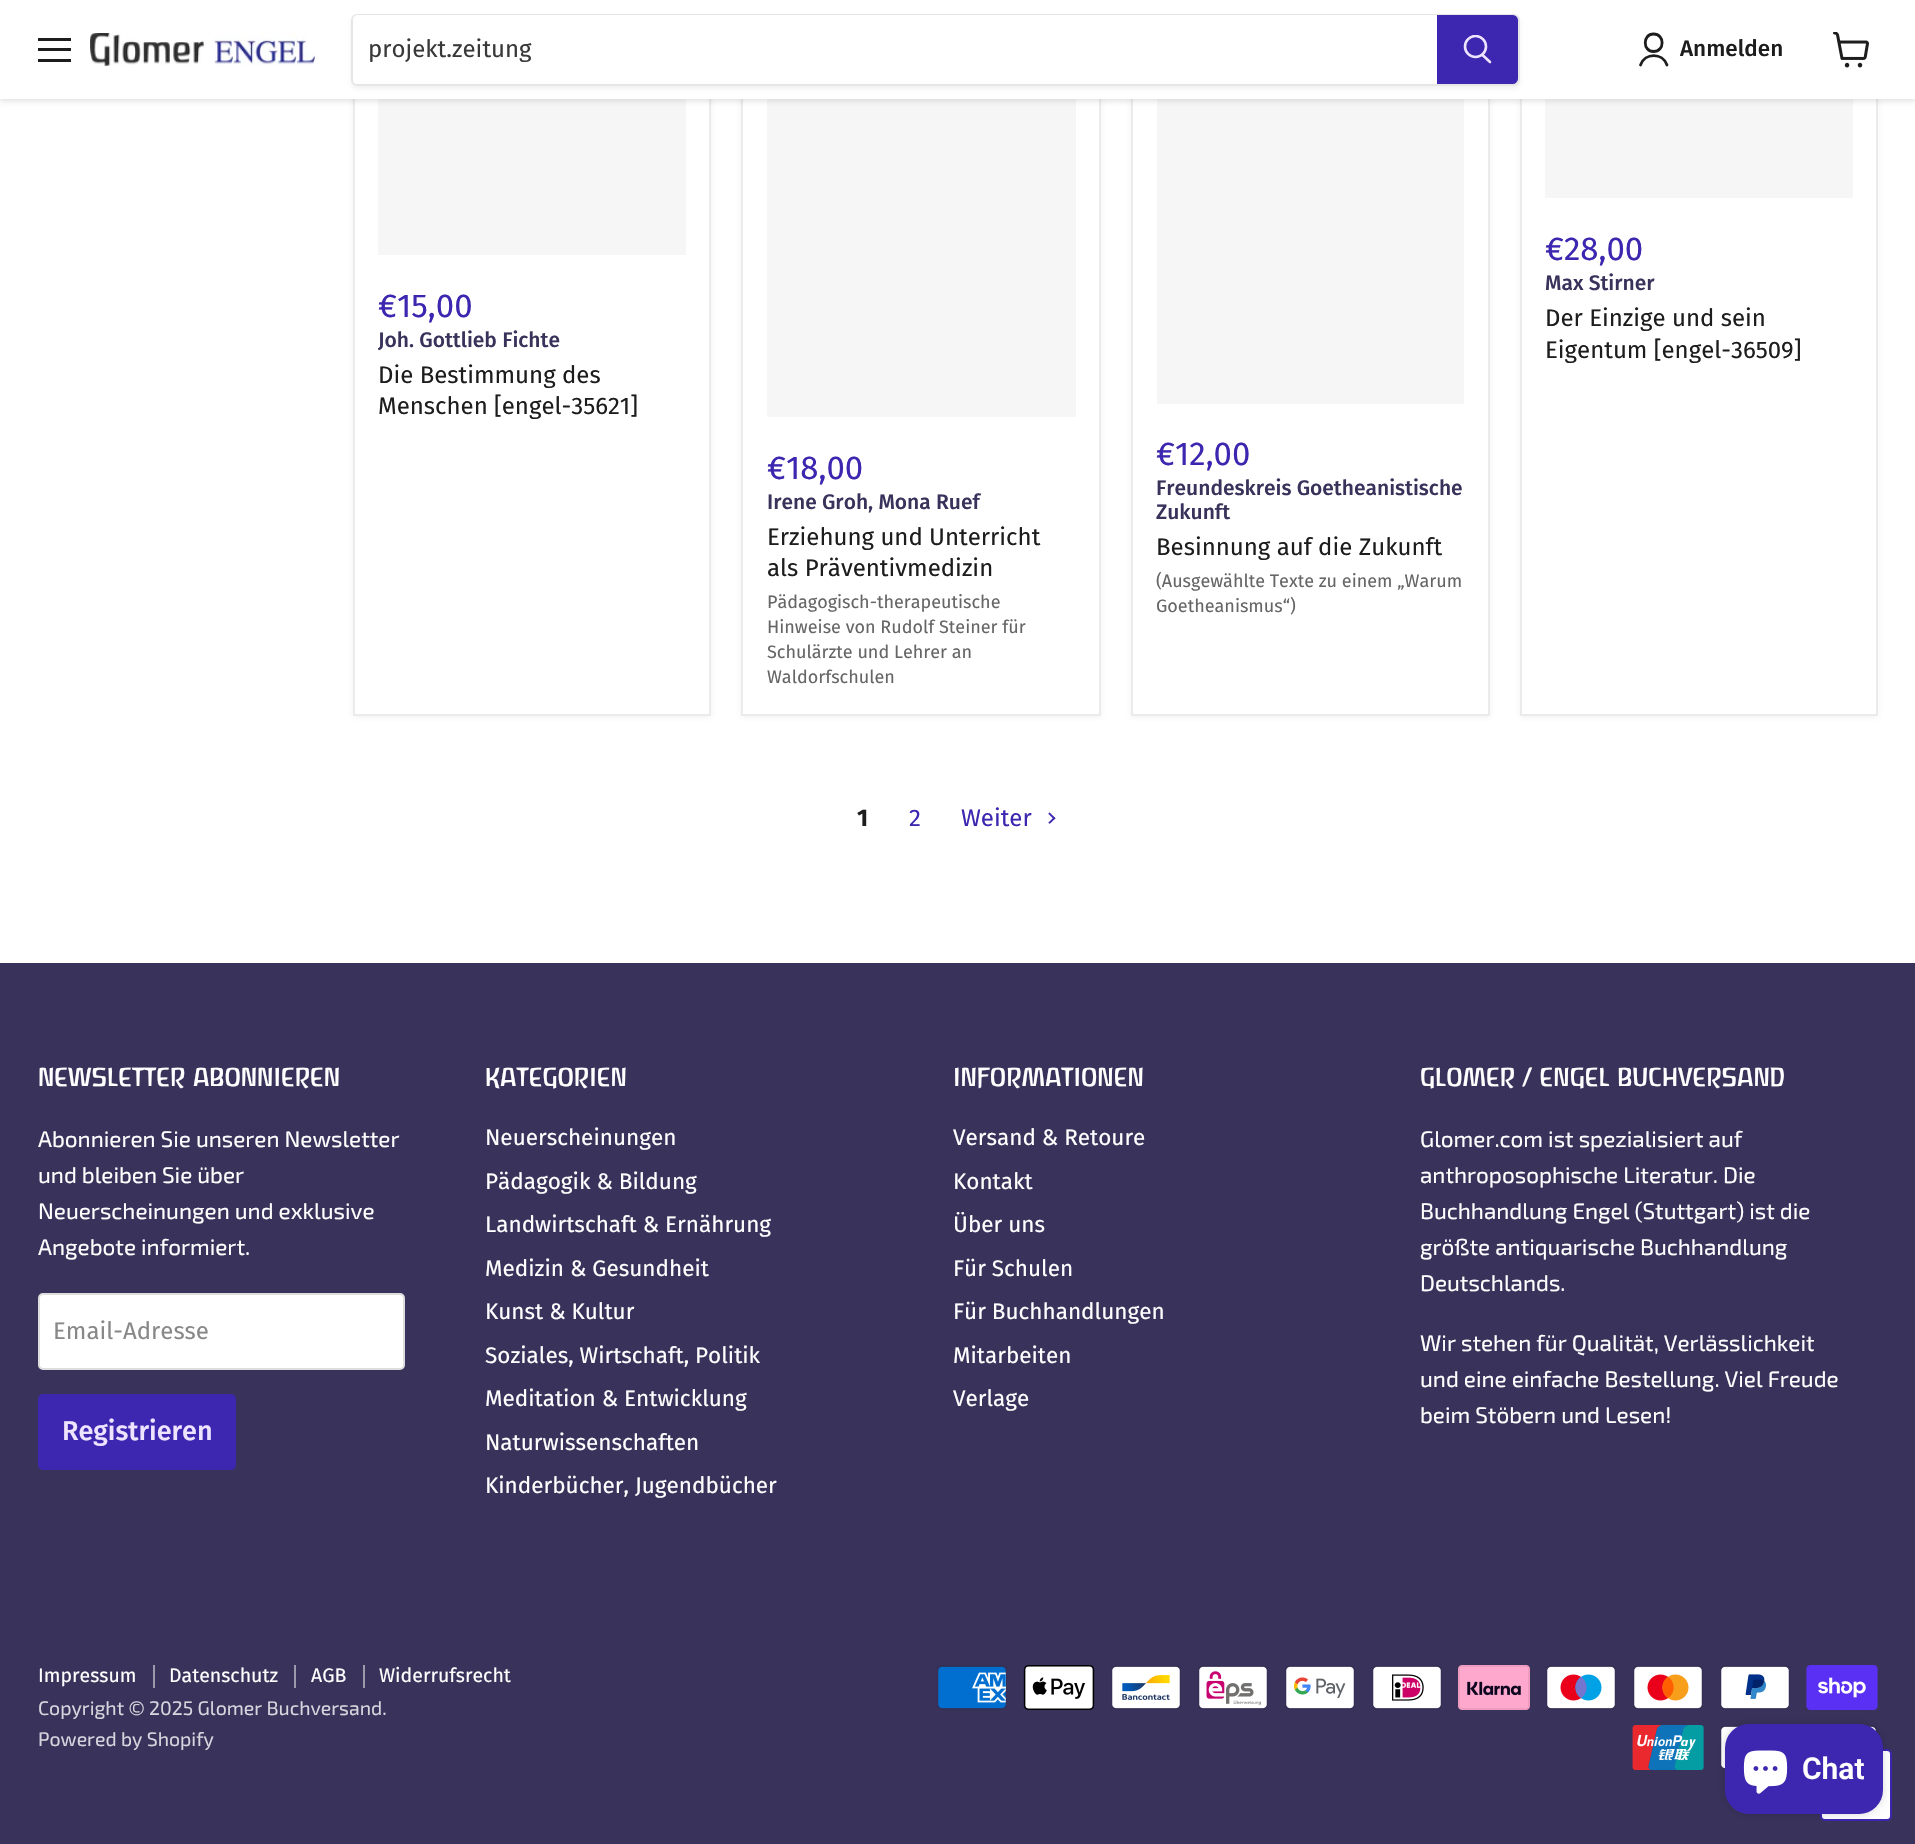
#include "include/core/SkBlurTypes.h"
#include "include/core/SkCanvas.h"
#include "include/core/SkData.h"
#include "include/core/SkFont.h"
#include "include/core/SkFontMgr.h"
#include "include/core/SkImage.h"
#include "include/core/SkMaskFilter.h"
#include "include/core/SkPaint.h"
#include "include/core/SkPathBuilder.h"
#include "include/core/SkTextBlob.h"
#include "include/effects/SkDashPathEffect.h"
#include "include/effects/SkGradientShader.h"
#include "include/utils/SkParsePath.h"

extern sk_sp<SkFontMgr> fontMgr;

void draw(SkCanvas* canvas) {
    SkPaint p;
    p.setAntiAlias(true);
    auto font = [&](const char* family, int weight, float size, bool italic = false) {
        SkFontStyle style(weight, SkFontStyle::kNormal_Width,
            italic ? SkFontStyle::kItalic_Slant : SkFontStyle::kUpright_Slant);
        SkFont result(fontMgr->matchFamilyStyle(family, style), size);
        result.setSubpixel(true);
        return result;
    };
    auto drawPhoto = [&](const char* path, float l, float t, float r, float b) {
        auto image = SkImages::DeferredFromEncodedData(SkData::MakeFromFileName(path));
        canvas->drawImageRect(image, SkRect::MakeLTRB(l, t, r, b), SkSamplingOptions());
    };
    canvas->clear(0xFFFFFFFF);
    p.setColor(0x1C808080);
    p.setMaskFilter(SkMaskFilter::MakeBlur(kNormal_SkBlurStyle, 3));
    canvas->drawRect(SkRect::MakeLTRB(353, -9, 711, 717), p);
    p.setMaskFilter(nullptr);
    p.setColor(0xFFFFFFFF);
    canvas->drawRect(SkRect::MakeLTRB(355, 99, 709, 714), p);
    p.setStyle(SkPaint::kStroke_Style);
    p.setStrokeWidth(2);
    p.setColor(0xFFEBEBEB);
    canvas->drawRect(SkRect::MakeLTRB(354, -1, 710, 715), p);
    p.setStyle(SkPaint::kFill_Style);
    p.setColor(0xFFF6F6F6);
    canvas->drawRect(SkRect::MakeLTRB(378, 99, 686, 255), p);
    p.setColor(0x1C808080);
    p.setMaskFilter(SkMaskFilter::MakeBlur(kNormal_SkBlurStyle, 3));
    canvas->drawRect(SkRect::MakeLTRB(1520, -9, 1878, 717), p);
    p.setMaskFilter(nullptr);
    p.setColor(0xFFFFFFFF);
    canvas->drawRect(SkRect::MakeLTRB(1522, 99, 1876, 714), p);
    p.setStyle(SkPaint::kStroke_Style);
    p.setColor(0xFFEBEBEB);
    canvas->drawRect(SkRect::MakeLTRB(1521, -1, 1877, 715), p);
    p.setStyle(SkPaint::kFill_Style);
    p.setColor(0xFFF6F6F6);
    canvas->drawRect(SkRect::MakeLTRB(1545, 99, 1853, 198), p);
    p.setColor(0x1C808080);
    p.setMaskFilter(SkMaskFilter::MakeBlur(kNormal_SkBlurStyle, 3));
    canvas->drawRect(SkRect::MakeLTRB(741, -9, 1101, 717), p);
    p.setMaskFilter(nullptr);
    p.setColor(0xFFFFFFFF);
    canvas->drawRect(SkRect::MakeLTRB(743, 99, 1099, 714), p);
    p.setStyle(SkPaint::kStroke_Style);
    p.setColor(0xFFEBEBEB);
    canvas->drawRect(SkRect::MakeLTRB(742, -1, 1100, 715), p);
    p.setStyle(SkPaint::kFill_Style);
    p.setColor(0xFFF6F6F6);
    canvas->drawRect(SkRect::MakeLTRB(767, 99, 1076, 417), p);
    p.setColor(0x1C808080);
    p.setMaskFilter(SkMaskFilter::MakeBlur(kNormal_SkBlurStyle, 3));
    canvas->drawRect(SkRect::MakeLTRB(1131, -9, 1490, 717), p);
    p.setMaskFilter(nullptr);
    p.setColor(0xFFFFFFFF);
    canvas->drawRect(SkRect::MakeLTRB(1133, 99, 1488, 714), p);
    p.setStyle(SkPaint::kStroke_Style);
    p.setColor(0xFFEBEBEB);
    canvas->drawRect(SkRect::MakeLTRB(1132, -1, 1489, 715), p);
    p.setStyle(SkPaint::kFill_Style);
    p.setColor(0xFFF6F6F6);
    canvas->drawRect(SkRect::MakeLTRB(1157, 99, 1464, 404), p);
    p.setColor(0x40808080);
    p.setMaskFilter(SkMaskFilter::MakeBlur(kNormal_SkBlurStyle, 3));
    canvas->drawRect(SkRect::MakeLTRB(0, 2, 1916, 101), p);
    p.setMaskFilter(nullptr);
    {
        const struct { float l, t, r, b; SkColor color; } items[] = {
            {0, 0, 1915, 99, 0xFFFFFFFF},
            {38, 38, 71, 41, 0xFF1D1D1D},
            {38, 48, 71, 51, 0xFF1D1D1D},
            {38, 59, 71, 62, 0xFF1D1D1D},
        };
        for (auto [l, t, r, b, color] : items) {
            p.setColor(color);
            canvas->drawRect(SkRect::MakeLTRB(l, t, r, b), p);
        }
    }
    drawPhoto("media/1.png", 90, 33, 315, 66);
    canvas->save();
    canvas->clipPath(SkPathBuilder(SkPathFillType::kEvenOdd).moveTo(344, 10).lineTo(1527, 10).lineTo(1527, 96).lineTo(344, 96).close().moveTo(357, 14).lineTo(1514, 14).cubicTo(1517.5f, 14, 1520, 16.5f, 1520, 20).lineTo(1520, 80).cubicTo(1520, 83.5f, 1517.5f, 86, 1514, 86).lineTo(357, 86).cubicTo(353.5f, 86, 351, 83.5f, 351, 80).lineTo(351, 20).cubicTo(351, 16.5f, 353.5f, 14, 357, 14).close().detach(), true);
    p.setColor(0x1C808080);
    p.setMaskFilter(SkMaskFilter::MakeBlur(kNormal_SkBlurStyle, 2));
    canvas->drawRoundRect(SkRect::MakeLTRB(351, 17, 1520, 89), 6, 6, p);
    p.setMaskFilter(nullptr);
    canvas->restore();
    p.setStyle(SkPaint::kStroke_Style);
    p.setColor(0x33808080);
    canvas->drawRoundRect(SkRect::MakeLTRB(352, 15, 1519, 85), 5, 5, p);
    p.setStyle(SkPaint::kFill_Style);
    p.setColor(0xFFFFFFFF);
    canvas->drawPath(SkPathBuilder().moveTo(358, 15).lineTo(1437, 15).lineTo(1437, 84).lineTo(358, 84).cubicTo(355, 84, 353, 82, 353, 79).lineTo(353, 20).cubicTo(353, 17, 355, 15, 358, 15).close().detach(), p);
    auto font1 = font("Fira Sans", 400, 24);
    p.setColor(0xFF393939);
    canvas->drawString("projekt.zeitung", 368, 57, font1, p);
    p.setColor(0xFF3D26B0);
    canvas->drawPath(SkPathBuilder().moveTo(1438, 16).lineTo(1513, 16).cubicTo(1515, 16, 1517, 18, 1517, 20).lineTo(1517, 79).cubicTo(1517, 81, 1515, 83, 1513, 83).lineTo(1438, 83).close().detach(), p);
    p.setStyle(SkPaint::kStroke_Style);
    canvas->drawPath(SkPathBuilder().moveTo(1438, 16).lineTo(1513, 16).cubicTo(1515, 16, 1517, 18, 1517, 20).lineTo(1517, 79).cubicTo(1517, 81, 1515, 83, 1513, 83).lineTo(1438, 83).close().detach(), p);
    p.setStrokeWidth(2.6f);
    p.setStrokeCap(SkPaint::kRound_Cap);
    p.setColor(0xFFEEE4FF);
    canvas->drawPath(SkPathBuilder().moveTo(1490, 62).lineTo(1482.5f, 55).detach(), p);
    canvas->save();
    canvas->clipRect(SkRect::MakeLTRB(1463, 35, 1493, 66));
    p.setStrokeCap(SkPaint::kButt_Cap);
    canvas->drawCircle(1475.5f, 46.5f, 10.5f, p);
    canvas->restore();
    p.setStrokeWidth(2.8f);
    p.setStrokeCap(SkPaint::kRound_Cap);
    p.setStrokeJoin(SkPaint::kRound_Join);
    p.setColor(0xFF1D1D1D);
    canvas->drawPath(SkPathBuilder().moveTo(1653.5f, 51.5f).cubicTo(1665, 51.5f, 1665, 34, 1653.5f, 34).cubicTo(1642.5f, 34, 1642.5f, 51.5f, 1653.5f, 51.5f).close().moveTo(1667, 65).cubicTo(1662.5f, 52.5f, 1645, 52.5f, 1640.5f, 65).detach(), p);
    auto font2 = font("Fira Sans", 500, 22.5f);
    p.setStyle(SkPaint::kFill_Style);
    canvas->drawString("Anmelden", 1680, 56, font2, p);
    drawPhoto("media/2.png", 1833, 32, 1869, 68);
    auto font3 = font("Fira Sans", 400, 33);
    p.setColor(0xFF3D26B0);
    canvas->drawString("€15,00", 378, 317, font3, p);
    auto font4 = font("Fira Sans", 500, 21);
    p.setColor(0xFF39325B);
    canvas->drawString("Joh. Gottlieb Fichte", 378, 347, font4, p);
    p.setColor(0xFF1D1D1D);
    canvas->drawString("Die Bestimmung des", 378, 383, font1, p);
    canvas->drawString("Menschen [engel-35621]", 378, 414, font1, p);
    p.setColor(0xFF3D26B0);
    canvas->drawString("€28,00", 1545, 260, font3, p);
    p.setColor(0xFF39325B);
    canvas->drawString("Max Stirner", 1545, 290, font4, p);
    p.setColor(0xFF1D1D1D);
    canvas->drawString("Der Einzige und sein", 1545, 326, font1, p);
    canvas->drawString("Eigentum [engel-36509]", 1545, 358, font1, p);
    p.setColor(0xFF3D26B0);
    canvas->drawString("€18,00", 767, 479, font3, p);
    p.setColor(0xFF39325B);
    canvas->drawString("Irene Groh, Mona Ruef", 767, 509, font4, p);
    p.setColor(0xFF1D1D1D);
    canvas->drawString("Erziehung und Unterricht", 767, 545, font1, p);
    canvas->drawString("als Präventivmedizin", 767, 576, font1, p);
    auto font5 = font("Fira Sans", 400, 18);
    p.setColor(0xFF666666);
    {
        const struct { const char* s; float x, y; } items[] = {
            {"Pädagogisch-therapeutische", 767, 608},
            {"Hinweise von Rudolf Steiner für", 767, 633},
            {"Schulärzte und Lehrer an", 767, 658},
            {"Waldorfschulen", 767, 683},
        };
        for (auto [s, x, y] : items) {
            canvas->drawString(s, x, y, font5, p);
        }
    }
    p.setColor(0xFF3D26B0);
    canvas->drawString("€12,00", 1156, 465, font3, p);
    p.setColor(0xFF39325B);
    canvas->drawString("Freundeskreis Goetheanistische", 1156, 495, font4, p);
    canvas->drawString("Zukunft", 1156, 519, font4, p);
    p.setColor(0xFF1D1D1D);
    canvas->drawString("Besinnung auf die Zukunft", 1156, 555, font1, p);
    p.setColor(0xFF666666);
    canvas->drawString("(Ausgewählte Texte zu einem „Warum", 1156, 587, font5, p);
    canvas->drawString("Goetheanismus“)", 1156, 612, font5, p);
    auto font6 = font("Fira Sans", 700, 24);
    p.setColor(0xFF1D1D1D);
    canvas->drawString("1", 857, 826, font6, p);
    p.setColor(0xFF3D26B0);
    canvas->drawString("2", 909, 826, font1, p);
    canvas->drawString("Weiter", 961, 826, font1, p);
    drawPhoto("media/3.png", 1048, 812, 1056, 824);
    p.setColor(0xFF39325B);
    canvas->drawRect(SkRect::MakeLTRB(0, 963, 1915, 1844), p);
    auto font7 = font("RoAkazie", 400, 27);
    p.setColor(0xFFFFFFFF);
    canvas->drawString("NEWSLETTER ABONNIEREN", 38, 1086, font7, p);
    auto font8 = font("Exo 2", 400, 22.5f);
    {
        const struct { const char* s; float x, y; } items[] = {
            {"Abonnieren Sie unseren Newsletter", 38, 1147},
            {"und bleiben Sie über", 38, 1183},
            {"Neuerscheinungen und exklusive", 38, 1219},
            {"Angebote informiert.", 38, 1255},
        };
        for (auto [s, x, y] : items) {
            canvas->drawString(s, x, y, font8, p);
        }
    }
    canvas->drawRoundRect(SkRect::MakeLTRB(39, 1294, 404, 1369), 4, 4, p);
    p.setStyle(SkPaint::kStroke_Style);
    p.setStrokeWidth(2);
    p.setStrokeCap(SkPaint::kButt_Cap);
    p.setStrokeJoin(SkPaint::kMiter_Join);
    p.setColor(0xFFDDDDDD);
    canvas->drawRoundRect(SkRect::MakeLTRB(39, 1294, 404, 1369), 4, 4, p);
    p.setStyle(SkPaint::kFill_Style);
    p.setColor(0xFF888888);
    canvas->drawString("Email-Adresse", 53, 1339, font1, p);
    p.setColor(0xFF3D26B0);
    canvas->drawRoundRect(SkRect::MakeLTRB(39, 1395, 235, 1469), 4, 4, p);
    p.setStyle(SkPaint::kStroke_Style);
    canvas->drawRoundRect(SkRect::MakeLTRB(39, 1395, 235, 1469), 4, 4, p);
    auto font9 = font("Fira Sans", 500, 27);
    p.setStyle(SkPaint::kFill_Style);
    p.setColor(0xFFEEE4FF);
    canvas->drawString("Registrieren", 62, 1440, font9, p);
    p.setColor(0xFFFFFFFF);
    canvas->drawString("KATEGORIEN", 485, 1086, font7, p);
    auto font10 = font("Fira Sans", 400, 22.5f);
    {
        const struct { const char* s; float x, y; } items[] = {
            {"Neuerscheinungen", 485, 1145},
            {"Pädagogik & Bildung", 485, 1189},
            {"Landwirtschaft & Ernährung", 485, 1232},
            {"Medizin & Gesundheit", 485, 1276},
            {"Kunst & Kultur", 485, 1319},
            {"Soziales, Wirtschaft, Politik", 485, 1363},
            {"Meditation & Entwicklung", 485, 1406},
            {"Naturwissenschaften", 485, 1450},
            {"Kinderbücher, Jugendbücher", 485, 1493},
        };
        for (auto [s, x, y] : items) {
            canvas->drawString(s, x, y, font10, p);
        }
    }
    canvas->drawString("INFORMATIONEN", 953, 1086, font7, p);
    {
        const struct { const char* s; float x, y; } items[] = {
            {"Versand & Retoure", 953, 1145},
            {"Kontakt", 953, 1189},
            {"Über uns", 953, 1232},
            {"Für Schulen", 953, 1276},
            {"Für Buchhandlungen", 953, 1319},
            {"Mitarbeiten", 953, 1363},
            {"Verlage", 953, 1406},
        };
        for (auto [s, x, y] : items) {
            canvas->drawString(s, x, y, font10, p);
        }
    }
    canvas->drawString("GLOMER / ENGEL BUCHVERSAND", 1420, 1086, font7, p);
    {
        const struct { const char* s; float x, y; } items[] = {
            {"Glomer.com ist spezialisiert auf", 1420, 1147},
            {"anthroposophische Literatur. Die", 1420, 1183},
            {"Buchhandlung Engel (Stuttgart) ist die", 1420, 1219},
            {"größte antiquarische Buchhandlung", 1420, 1255},
            {"Deutschlands.", 1420, 1291},
            {"Wir stehen für Qualität, Verlässlichkeit", 1420, 1351},
            {"und eine einfache Bestellung. Viel Freude", 1420, 1387},
            {"beim Stöbern und Lesen!", 1420, 1423},
        };
        for (auto [s, x, y] : items) {
            canvas->drawString(s, x, y, font8, p);
        }
    }
    p.setColor(0xFF9C99AD);
    canvas->drawRect(SkRect::MakeLTRB(153, 1665, 155, 1688), p);
    auto font11 = font("Fira Sans", 400, 19.5f);
    p.setColor(0xFFFFFFFF);
    canvas->drawString("Impressum", 38, 1682, font11, p);
    p.setColor(0xFF9C99AD);
    canvas->drawRect(SkRect::MakeLTRB(294, 1665, 296, 1688), p);
    p.setColor(0xFFFFFFFF);
    canvas->drawString("Datenschutz", 169, 1682, font11, p);
    p.setColor(0xFF9C99AD);
    canvas->drawRect(SkRect::MakeLTRB(363, 1665, 365, 1688), p);
    p.setColor(0xFFFFFFFF);
    canvas->drawString("AGB", 311, 1682, font11, p);
    canvas->drawString("Widerrufsrecht", 379, 1682, font11, p);
    auto font12 = font("Exo 2", 400, 19.5f);
    p.setColor(0xFFD7D6DE);
    canvas->drawString("Copyright © 2025 Glomer Buchversand.", 38, 1715, font12, p);
    canvas->drawString("Powered by Shopify", 38, 1746, font12, p);
    drawPhoto("media/4.png", 937, 1665, 1007, 1710);
    drawPhoto("media/5.png", 1023, 1665, 1095, 1710);
    drawPhoto("media/6.png", 1111, 1665, 1181, 1710);
    drawPhoto("media/7.png", 1198, 1665, 1268, 1710);
    drawPhoto("media/8.png", 1285, 1665, 1355, 1710);
    drawPhoto("media/9.png", 1372, 1665, 1442, 1710);
    drawPhoto("media/10.png", 1458, 1665, 1530, 1710);
    drawPhoto("media/11.png", 1546, 1665, 1616, 1710);
    drawPhoto("media/12.png", 1633, 1665, 1703, 1710);
    drawPhoto("media/13.png", 1720, 1665, 1790, 1710);
    drawPhoto("media/14.png", 1806, 1665, 1878, 1710);
    drawPhoto("media/15.png", 1632, 1725, 1704, 1770);
    drawPhoto("media/16.png", 1720, 1725, 1742, 1770);
    drawPhoto("media/17.png", 1866, 1725, 1877, 1733);
    p.setColor(0xFFFFFFFF);
    canvas->drawRoundRect(SkRect::MakeLTRB(1821, 1750, 1891, 1820), 4, 4, p);
    p.setStyle(SkPaint::kStroke_Style);
    p.setColor(0xFF3D26B0);
    canvas->drawRoundRect(SkRect::MakeLTRB(1821, 1750, 1891, 1820), 4, 4, p);
    p.setStyle(SkPaint::kFill_Style);
    p.setColor(0x26000000);
    p.setMaskFilter(SkMaskFilter::MakeBlur(kNormal_SkBlurStyle, 4));
    canvas->drawRoundRect(SkRect::MakeLTRB(1725, 1724, 1883, 1814), 24, 24, p);
    p.setMaskFilter(nullptr);
    p.setColor(0xFF3D26B0);
    canvas->drawRoundRect(SkRect::MakeLTRB(1725, 1724, 1883, 1814), 24, 24, p);
    drawPhoto("media/18.png", 1743, 1750, 1788, 1794);
    auto font13 = font("Roboto", 600, 30);
    p.setColor(0xFFFFFFFF);
    canvas->drawString("Chat", 1802, 1779, font13, p);
}
